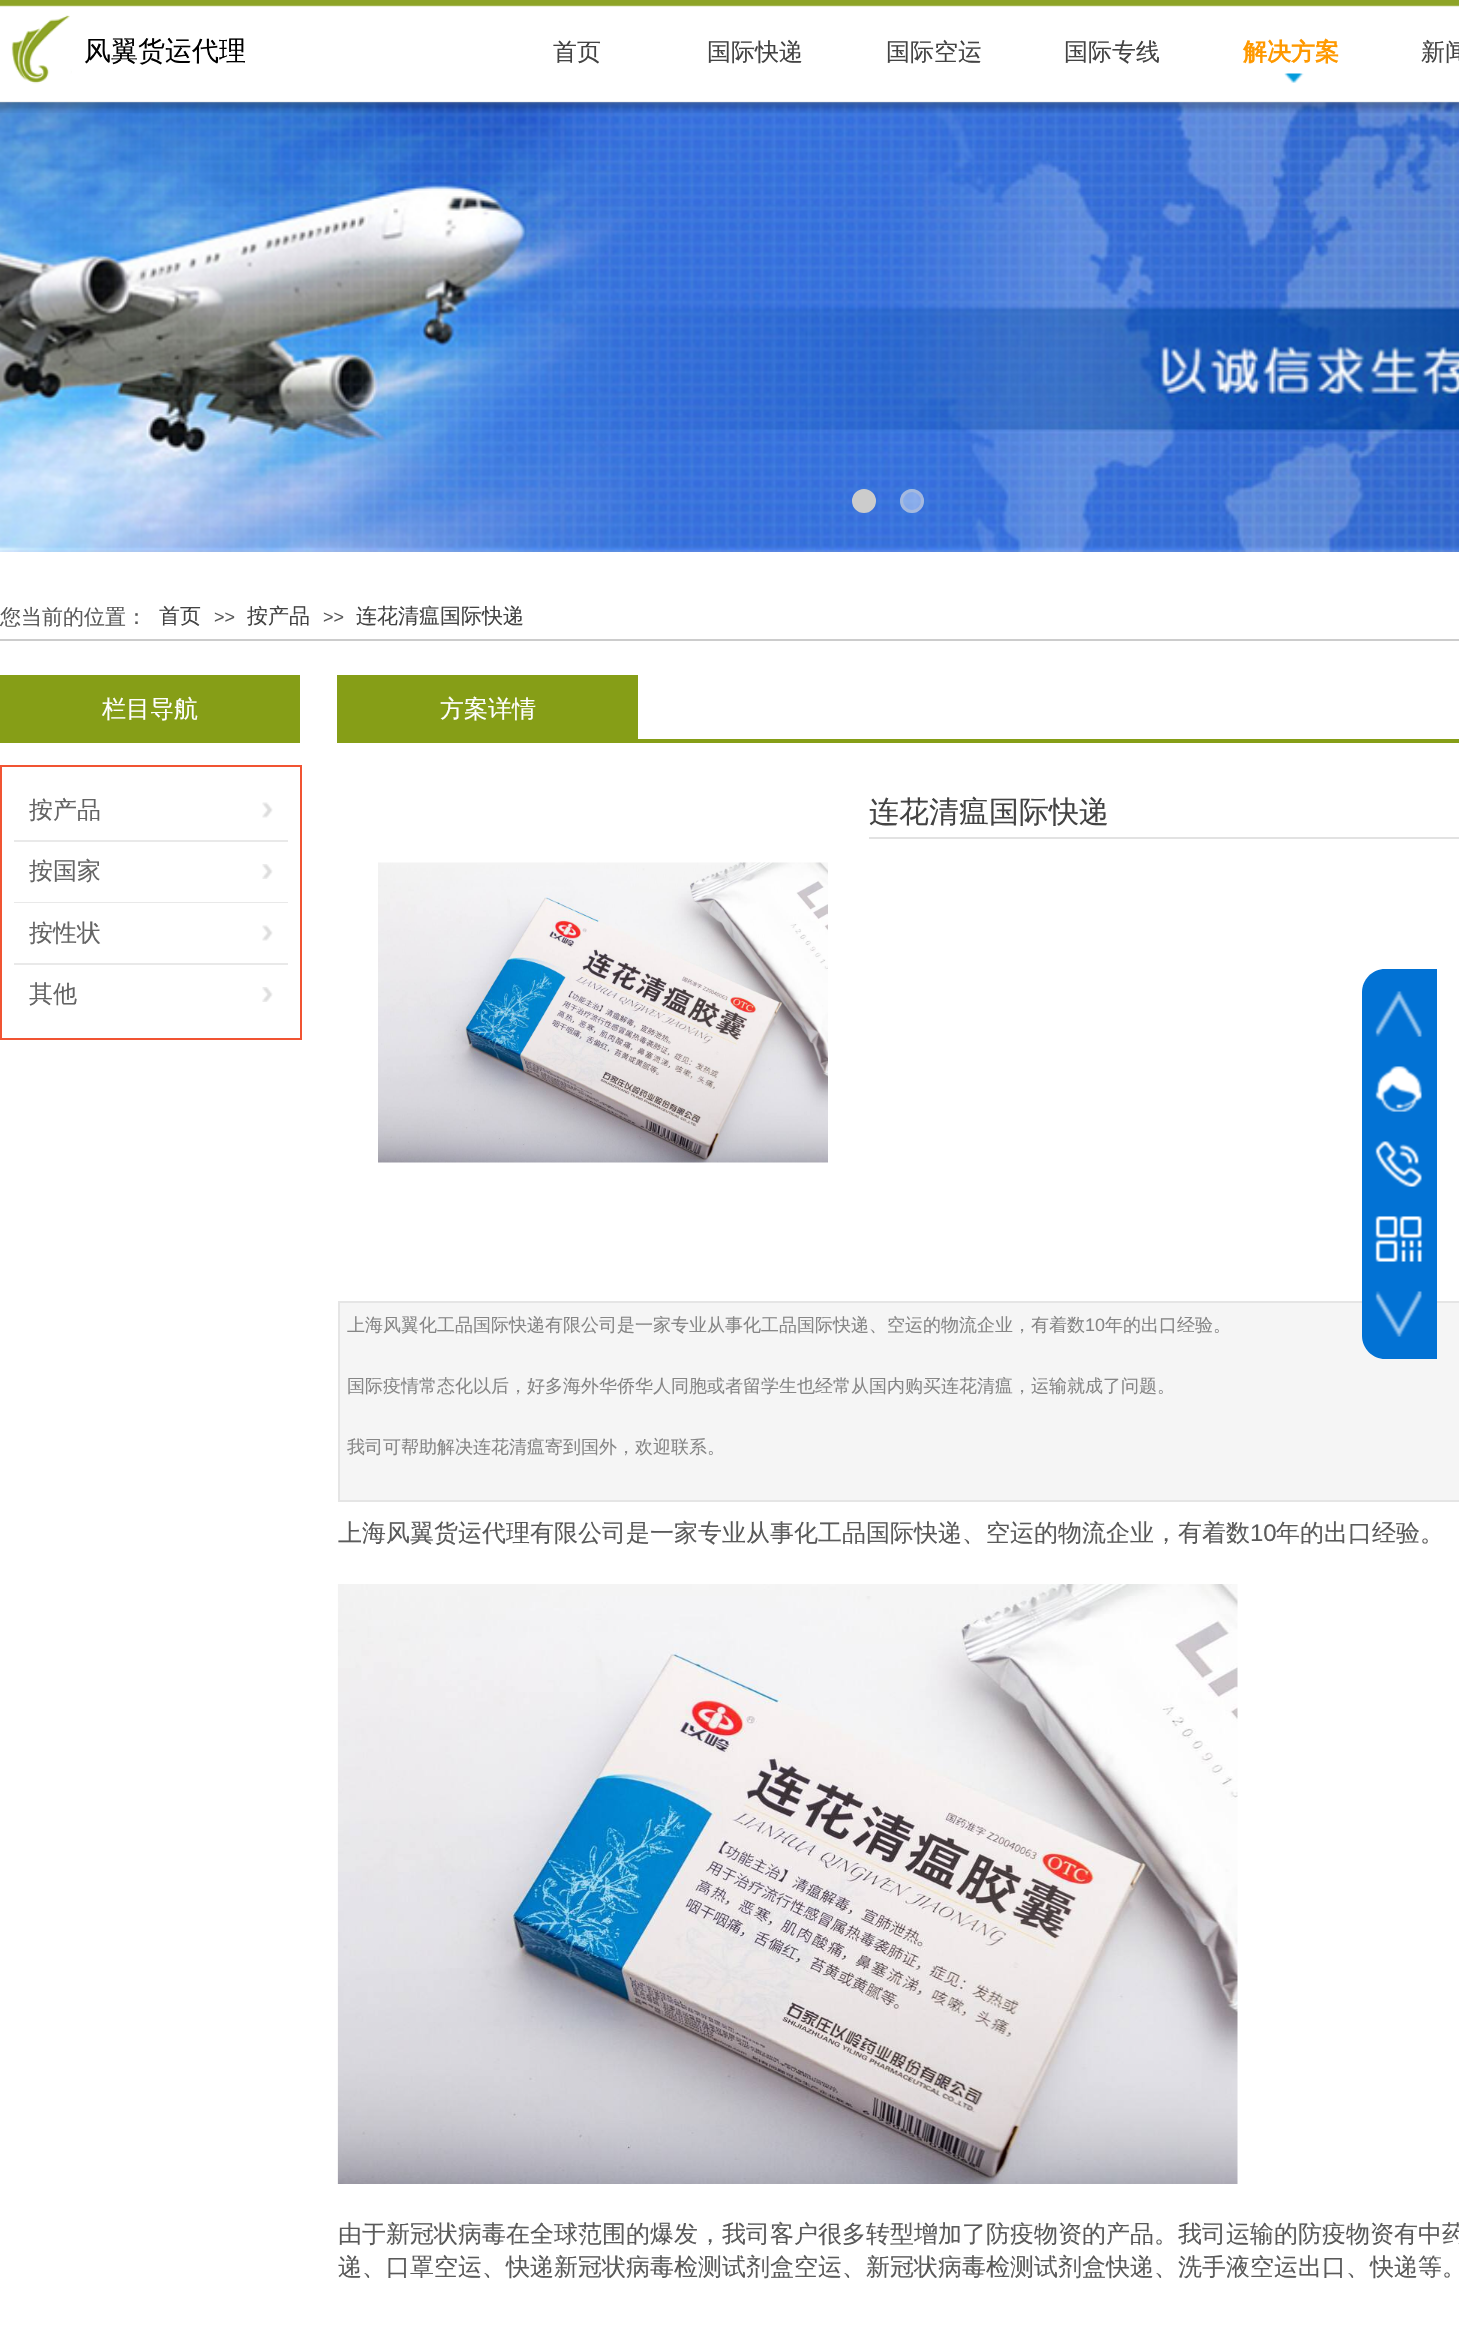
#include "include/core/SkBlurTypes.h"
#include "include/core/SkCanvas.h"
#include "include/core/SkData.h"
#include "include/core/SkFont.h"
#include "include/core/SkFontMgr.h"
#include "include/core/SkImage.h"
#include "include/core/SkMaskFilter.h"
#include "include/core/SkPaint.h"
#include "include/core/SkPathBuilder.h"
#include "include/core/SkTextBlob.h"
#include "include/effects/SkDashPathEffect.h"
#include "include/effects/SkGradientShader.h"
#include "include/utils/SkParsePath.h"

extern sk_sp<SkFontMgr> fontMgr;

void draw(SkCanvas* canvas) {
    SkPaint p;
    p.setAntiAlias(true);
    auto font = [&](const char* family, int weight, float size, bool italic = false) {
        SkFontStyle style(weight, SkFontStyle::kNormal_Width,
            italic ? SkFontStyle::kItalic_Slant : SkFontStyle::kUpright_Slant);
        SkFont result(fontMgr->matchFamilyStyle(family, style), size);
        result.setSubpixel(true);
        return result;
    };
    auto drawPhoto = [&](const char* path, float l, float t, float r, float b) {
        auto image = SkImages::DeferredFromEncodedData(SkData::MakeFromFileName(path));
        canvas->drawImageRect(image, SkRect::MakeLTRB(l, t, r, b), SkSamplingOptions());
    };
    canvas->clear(0xFFFFFFFF);
    drawPhoto("media/4.png", 0, 102, 1459, 552);
    drawPhoto("media/1.png", 0, 0, 1459, 113);
    drawPhoto("media/2.png", 11, 15, 72, 84);
    auto font1 = font("WenQuanYi Zen Hei", 500, 27);
    p.setColor(0xFF000000);
    canvas->drawString("风翼货运代理", 84, 60, font1, p);
    auto font2 = font("WenQuanYi Zen Hei", 500, 24);
    p.setColor(0xFF434343);
    {
        const struct { const char* s; float x, y; } items[] = {
            {"首页", 553, 60},
            {"国际快递", 707, 60},
            {"国际空运", 886, 60},
            {"国际专线", 1064, 60},
        };
        for (auto [s, x, y] : items) {
            canvas->drawString(s, x, y, font2, p);
        }
    }
    drawPhoto("media/3.png", 1284, 73, 1304, 83);
    auto font3 = font("WenQuanYi Zen Hei", 700, 24);
    p.setColor(0xFFFF9900);
    canvas->drawString("解决方案", 1243, 60, font3, p);
    p.setColor(0xFF434343);
    canvas->drawString("新闻", 1421, 60, font2, p);
    p.setColor(0xFFCCCCCC);
    canvas->drawCircle(864, 501, 10.5f, p);
    p.setStyle(SkPaint::kStroke_Style);
    p.setStrokeWidth(3);
    canvas->drawCircle(864, 501, 10.5f, p);
    p.setStyle(SkPaint::kFill_Style);
    p.setColor(0x66FFFFFF);
    canvas->drawCircle(912, 501, 12, p);
    p.setStyle(SkPaint::kStroke_Style);
    p.setColor(0x66CCCCCC);
    canvas->drawCircle(912, 501, 10.5f, p);
    p.setStyle(SkPaint::kFill_Style);
    p.setColor(0xFFCCCCCC);
    canvas->drawRect(SkRect::MakeLTRB(0, 639, 1459, 641), p);
    auto font4 = font("WenQuanYi Zen Hei", 500, 21);
    p.setColor(0xFF5A5A5A);
    canvas->drawString("您当前的位置：", 0, 624, font4, p);
    p.setColor(0xFF434343);
    canvas->drawString("首页", 159, 623, font4, p);
    auto font5 = font("Liberation Sans", 400, 18);
    p.setColor(0xFF5A5A5A);
    canvas->drawString(">>", 214, 623, font5, p);
    p.setColor(0xFF434343);
    canvas->drawString("按产品", 247, 623, font4, p);
    p.setColor(0xFF5A5A5A);
    canvas->drawString(">>", 323, 623, font5, p);
    p.setColor(0xFF434343);
    canvas->drawString("连花清瘟国际快递", 356, 623, font4, p);
    p.setColor(0xFF869E17);
    canvas->drawRect(SkRect::MakeLTRB(0, 675, 300, 743), p);
    p.setColor(0xFFFFFFFF);
    canvas->drawString("栏目导航", 102, 717, font2, p);
    p.setColor(0xFF869E17);
    canvas->drawRect(SkRect::MakeLTRB(337, 739, 1459, 743), p);
    canvas->drawRect(SkRect::MakeLTRB(337, 675, 638, 739), p);
    p.setColor(0xFFFFFFFF);
    canvas->drawString("方案详情", 440, 717, font2, p);
    p.setStyle(SkPaint::kStroke_Style);
    p.setStrokeWidth(2);
    p.setColor(0xFFF15433);
    canvas->drawRect(SkRect::MakeLTRB(1, 766, 301, 1039), p);
    p.setStyle(SkPaint::kFill_Style);
    p.setColor(0xFFE9E9E9);
    canvas->drawRect(SkRect::MakeLTRB(14, 840, 288, 842), p);
    p.setColor(0xFF646464);
    canvas->drawString("按产品", 29, 818, font2, p);
    drawPhoto("media/5.png", 262, 802, 273, 818);
    p.setColor(0xFFE9E9E9);
    canvas->drawRect(SkRect::MakeLTRB(14, 902, 288, 903), p);
    p.setColor(0xFF646464);
    canvas->drawString("按国家", 29, 879, font2, p);
    drawPhoto("media/6.png", 262, 864, 273, 879);
    p.setColor(0xFFE9E9E9);
    canvas->drawRect(SkRect::MakeLTRB(14, 963, 288, 965), p);
    p.setColor(0xFF646464);
    canvas->drawString("按性状", 29, 941, font2, p);
    drawPhoto("media/5.png", 262, 925, 273, 941);
    canvas->drawString("其他", 29, 1002, font2, p);
    drawPhoto("media/6.png", 262, 987, 273, 1002);
    p.setColor(0xFFE2E2E2);
    canvas->drawRect(SkRect::MakeLTRB(869, 837, 1459, 839), p);
    auto font6 = font("WenQuanYi Zen Hei", 500, 30);
    p.setColor(0xFF434343);
    canvas->drawString("连花清瘟国际快递", 869, 822, font6, p);
    drawPhoto("media/7.png", 378, 862, 828, 1163);
    p.setColor(0xFFF5F5F5);
    canvas->drawRect(SkRect::MakeLTRB(339, 1302, 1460, 1501), p);
    p.setStyle(SkPaint::kStroke_Style);
    p.setColor(0xFFE5E5E5);
    canvas->drawRect(SkRect::MakeLTRB(339, 1302, 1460, 1501), p);
    auto font7 = font("WenQuanYi Zen Hei", 500, 18);
    p.setStyle(SkPaint::kFill_Style);
    p.setColor(0xFF868686);
    canvas->drawString("上海风翼化工品国际快递有限公司是一家专业从事化工品国际快递、空运的物流企业，有着数", 347, 1331, font7, p);
    canvas->drawString("10", 1085, 1331, font5, p);
    {
        const struct { const char* s; float x, y; } items[] = {
            {"年的出口经验。", 1105, 1331},
            {"国际疫情常态化以后，好多海外华侨华人同胞或者留学生也经常从国内购买连花清瘟，运输就成了问题。", 347, 1392},
            {"我司可帮助解决连花清瘟寄到国外，欢迎联系。", 347, 1453},
        };
        for (auto [s, x, y] : items) {
            canvas->drawString(s, x, y, font7, p);
        }
    }
    p.setColor(0xFF5A5A5A);
    canvas->drawString("上海风翼货运代理有限公司是一家专业从事化工品国际快递、空运的物流企业，有着数", 338, 1541, font2, p);
    auto font8 = font("Liberation Sans", 400, 24);
    canvas->drawString("10", 1250, 1541, font8, p);
    canvas->drawString("年的出口经验。", 1276, 1541, font2, p);
    drawPhoto("media/8.png", 337, 1584, 1238, 2184);
    canvas->drawString("由于新冠状病毒在全球范围的爆发，我司客户很多转型增加了防疫物资的产品。我司运输的防疫物资有中药", 338, 2242, font2, p);
    canvas->drawString("递、口罩空运、快递新冠状病毒检测试剂盒空运、新冠状病毒检测试剂盒快递、洗手液空运出口、快递等。", 338, 2275, font2, p);
    p.setColor(0xFF0272D4);
    canvas->drawPath(SkPathBuilder().moveTo(1385, 969).lineTo(1437, 969).lineTo(1437, 1359).lineTo(1385, 1359).cubicTo(1372.5f, 1359, 1362, 1348.5f, 1362, 1336).lineTo(1362, 992).cubicTo(1362, 979.5f, 1372.5f, 969, 1385, 969).close().detach(), p);
    drawPhoto("media/9.png", 1375, 991, 1422, 1037);
    drawPhoto("media/10.png", 1375, 1066, 1422, 1112);
    drawPhoto("media/11.png", 1375, 1141, 1422, 1187);
    drawPhoto("media/12.png", 1375, 1216, 1422, 1262);
    drawPhoto("media/13.png", 1375, 1291, 1422, 1337);
}
